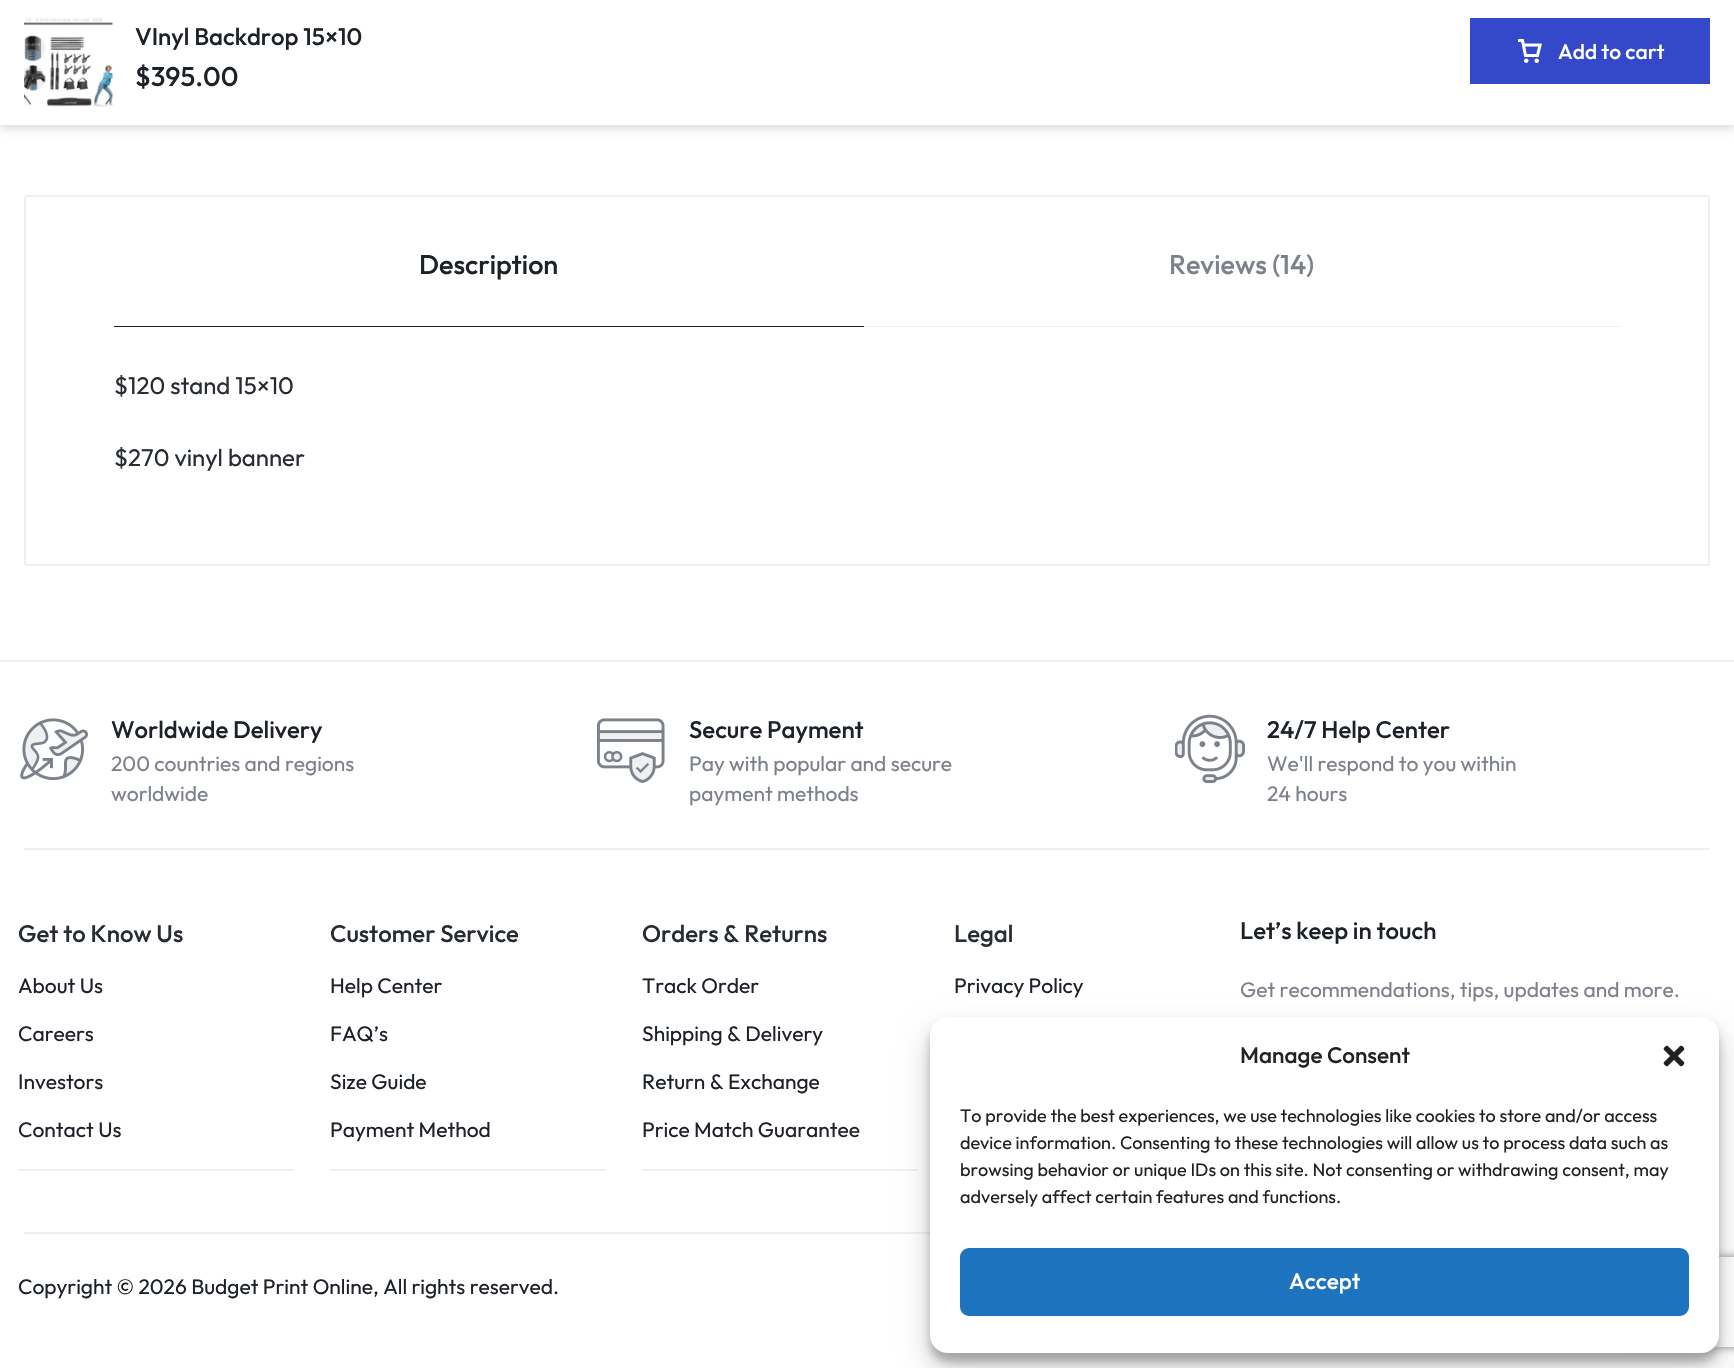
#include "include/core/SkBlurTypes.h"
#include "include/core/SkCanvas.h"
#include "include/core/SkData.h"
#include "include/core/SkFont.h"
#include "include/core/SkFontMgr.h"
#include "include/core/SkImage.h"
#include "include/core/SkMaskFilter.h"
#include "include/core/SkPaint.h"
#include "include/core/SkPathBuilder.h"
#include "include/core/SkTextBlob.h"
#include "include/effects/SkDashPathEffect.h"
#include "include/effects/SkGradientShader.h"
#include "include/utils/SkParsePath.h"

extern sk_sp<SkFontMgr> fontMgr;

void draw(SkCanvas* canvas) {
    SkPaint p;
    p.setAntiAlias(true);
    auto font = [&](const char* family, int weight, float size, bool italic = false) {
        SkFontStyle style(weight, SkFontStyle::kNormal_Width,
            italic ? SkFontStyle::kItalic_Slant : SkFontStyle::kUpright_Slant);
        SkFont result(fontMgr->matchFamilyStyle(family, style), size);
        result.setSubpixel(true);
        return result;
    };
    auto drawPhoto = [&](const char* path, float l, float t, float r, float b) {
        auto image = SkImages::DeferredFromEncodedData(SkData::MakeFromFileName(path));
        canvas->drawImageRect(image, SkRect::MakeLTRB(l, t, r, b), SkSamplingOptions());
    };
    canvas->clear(0xFFFFFFFF);
    p.setColor(0x29000000);
    p.setMaskFilter(SkMaskFilter::MakeBlur(kNormal_SkBlurStyle, 4.5f));
    canvas->drawRect(SkRect::MakeLTRB(0, 3, 1734, 128), p);
    p.setMaskFilter(nullptr);
    p.setColor(0xFFFFFFFF);
    canvas->drawRect(SkRect::MakeLTRB(0, 0, 1734, 125), p);
    drawPhoto("media/1.png", 24, 18, 113, 107);
    auto font1 = font("Outfit", 500, 24);
    p.setColor(0xFF1D2128);
    canvas->drawString("VInyl Backdrop 15×10", 135, 45, font1, p);
    auto font2 = font("Outfit", 500, 27);
    canvas->drawString("$395.00", 135, 86, font2, p);
    p.setColor(0xFF3449CA);
    canvas->drawRect(SkRect::MakeLTRB(1470, 18, 1710, 84), p);
    drawPhoto("media/2.png", 1518, 39, 1542, 63);
    auto font3 = font("Outfit", 500, 21);
    p.setColor(0xFFFFFFFF);
    canvas->drawString("Add to cart", 1558, 59, font3, p);
    p.setStyle(SkPaint::kStroke_Style);
    p.setStrokeWidth(2);
    p.setColor(0xFFECF0F4);
    canvas->drawRoundRect(SkRect::MakeLTRB(25, 196, 1709, 565), 2, 2, p);
    p.setStyle(SkPaint::kFill_Style);
    p.setColor(0xFF1D2128);
    canvas->drawRect(SkRect::MakeLTRB(114, 326, 864, 327), p);
    canvas->drawString("Description", 419, 274, font2, p);
    p.setColor(0xFFECF0F4);
    canvas->drawRect(SkRect::MakeLTRB(864, 326, 1620, 327), p);
    p.setColor(0xFF7C818B);
    canvas->drawString("Reviews (14)", 1169, 274, font2, p);
    auto font4 = font("Outfit", 400, 24);
    p.setColor(0xFF282C33);
    canvas->drawString("$120 stand 15×10", 114, 394, font4, p);
    canvas->drawString("$270 vinyl banner", 114, 466, font4, p);
    p.setColor(0xFFECF0F4);
    canvas->drawRect(SkRect::MakeLTRB(0, 660, 1734, 662), p);
    drawPhoto("media/3.png", 20, 718, 88, 781);
    p.setColor(0xFF1D2128);
    canvas->drawString("Worldwide Delivery", 111, 738, font1, p);
    auto font5 = font("Outfit", 400, 21);
    p.setColor(0xFF7C818B);
    canvas->drawString("200 countries and regions", 111, 771, font5, p);
    canvas->drawString("worldwide", 111, 801, font5, p);
    drawPhoto("media/4.png", 596, 718, 665, 783);
    p.setColor(0xFF1D2128);
    canvas->drawString("Secure Payment", 689, 738, font1, p);
    p.setColor(0xFF7C818B);
    canvas->drawString("Pay with popular and secure", 689, 771, font5, p);
    canvas->drawString("payment methods", 689, 801, font5, p);
    drawPhoto("media/5.png", 1175, 714, 1245, 784);
    p.setColor(0xFF1D2128);
    canvas->drawString("24/7 Help Center", 1267, 738, font1, p);
    p.setColor(0xFF7C818B);
    canvas->drawString("We'll respond to you within", 1267, 771, font5, p);
    canvas->drawString("24 hours", 1267, 801, font5, p);
    p.setColor(0xFFECF0F4);
    canvas->drawRect(SkRect::MakeLTRB(24, 848, 1710, 850), p);
    p.setColor(0xFF282C33);
    canvas->drawString("Get to Know Us", 18, 942, font1, p);
    p.setColor(0xFF1D2128);
    {
        const struct { const char* s; float x, y; } items[] = {
            {"About Us", 18, 993},
            {"Careers", 18, 1041},
            {"Investors", 18, 1089},
            {"Contact Us", 18, 1137},
        };
        for (auto [s, x, y] : items) {
            canvas->drawString(s, x, y, font5, p);
        }
    }
    p.setColor(0xFFECF0F4);
    canvas->drawRect(SkRect::MakeLTRB(18, 1169, 294, 1171), p);
    p.setColor(0xFF282C33);
    canvas->drawString("Customer Service", 330, 942, font1, p);
    p.setColor(0xFF1D2128);
    {
        const struct { const char* s; float x, y; } items[] = {
            {"Help Center", 330, 993},
            {"FAQ’s", 330, 1041},
            {"Size Guide", 330, 1089},
            {"Payment Method", 330, 1137},
        };
        for (auto [s, x, y] : items) {
            canvas->drawString(s, x, y, font5, p);
        }
    }
    p.setColor(0xFFECF0F4);
    canvas->drawRect(SkRect::MakeLTRB(330, 1169, 606, 1171), p);
    p.setColor(0xFF282C33);
    canvas->drawString("Orders & Returns", 642, 942, font1, p);
    p.setColor(0xFF1D2128);
    {
        const struct { const char* s; float x, y; } items[] = {
            {"Track Order", 642, 993},
            {"Shipping & Delivery", 642, 1041},
            {"Return & Exchange", 642, 1089},
            {"Price Match Guarantee", 642, 1137},
        };
        for (auto [s, x, y] : items) {
            canvas->drawString(s, x, y, font5, p);
        }
    }
    p.setColor(0xFFECF0F4);
    canvas->drawRect(SkRect::MakeLTRB(642, 1169, 918, 1171), p);
    p.setColor(0xFF282C33);
    canvas->drawString("Legal", 954, 942, font1, p);
    p.setColor(0xFF1D2128);
    canvas->drawString("Privacy Policy", 954, 993, font5, p);
    canvas->drawString("Let’s keep in touch", 1240, 939, font1, p);
    p.setColor(0xFF7C818B);
    canvas->drawString("Get recommendations, tips, updates and more.", 1240, 997, font5, p);
    p.setColor(0xFFECF0F4);
    canvas->drawRect(SkRect::MakeLTRB(24, 1232, 930, 1234), p);
    p.setColor(0xFF1D2128);
    canvas->drawString("Copyright © 2026 Budget Print Online, All rights reserved.", 18, 1294, font5, p);
    p.setColor(0x3B000000);
    p.setMaskFilter(SkMaskFilter::MakeBlur(kNormal_SkBlurStyle, 4.5f));
    canvas->drawRoundRect(SkRect::MakeLTRB(930, 1026, 1719, 1362), 18, 18, p);
    p.setMaskFilter(nullptr);
    p.setColor(0x30000000);
    p.setMaskFilter(SkMaskFilter::MakeBlur(kNormal_SkBlurStyle, 15));
    canvas->drawRoundRect(SkRect::MakeLTRB(930, 1032, 1719, 1368), 18, 18, p);
    p.setMaskFilter(nullptr);
    canvas->save();
    canvas->clipPath(SkPathBuilder(SkPathFillType::kEvenOdd).moveTo(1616, 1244).lineTo(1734, 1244).lineTo(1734, 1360).lineTo(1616, 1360).close().moveTo(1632, 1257).lineTo(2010, 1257).cubicTo(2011.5f, 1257, 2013, 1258.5f, 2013, 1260).lineTo(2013, 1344).cubicTo(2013, 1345.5f, 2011.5f, 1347, 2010, 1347).lineTo(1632, 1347).cubicTo(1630.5f, 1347, 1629, 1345.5f, 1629, 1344).lineTo(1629, 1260).cubicTo(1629, 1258.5f, 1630.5f, 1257, 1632, 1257).close().detach(), true);
    p.setColor(0xFF808080);
    p.setMaskFilter(SkMaskFilter::MakeBlur(kNormal_SkBlurStyle, 4));
    canvas->drawRoundRect(SkRect::MakeLTRB(1629, 1257, 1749, 1347), 3, 3, p);
    p.setMaskFilter(nullptr);
    canvas->restore();
    p.setColor(0xFFFFFFFF);
    canvas->drawRoundRect(SkRect::MakeLTRB(930, 1017, 1719, 1353), 18, 18, p);
    auto font6 = font("Outfit", 500, 22.5f);
    p.setColor(0xFF222222);
    canvas->drawString("Manage Consent", 1240, 1063, font6, p);
    drawPhoto("media/6.png", 1663, 1045, 1685, 1067);
    auto font7 = font("Outfit", 400, 18);
    {
        const struct { const char* s; float x, y; } items[] = {
            {"To provide the best experiences, we use technologies like cookies to store and/or access", 960, 1122},
            {"device information. Consenting to these technologies will allow us to process data such as", 960, 1149},
            {"browsing behavior or unique IDs on this site. Not consenting or withdrawing consent, may", 960, 1176},
            {"adversely affect certain features and functions.", 960, 1203},
        };
        for (auto [s, x, y] : items) {
            canvas->drawString(s, x, y, font7, p);
        }
    }
    p.setColor(0xFF1E73BE);
    canvas->drawRoundRect(SkRect::MakeLTRB(961, 1249, 1688, 1315), 8, 8, p);
    p.setStyle(SkPaint::kStroke_Style);
    canvas->drawRoundRect(SkRect::MakeLTRB(961, 1249, 1688, 1315), 8, 8, p);
    p.setStyle(SkPaint::kFill_Style);
    p.setColor(0xFFFFFFFF);
    canvas->drawString("Accept", 1289, 1289, font6, p);
    p.setColor(0xFFF5F5F5);
    canvas->drawRect(SkRect::MakeLTRB(1731, 1365, 1734, 1368), p);
}
